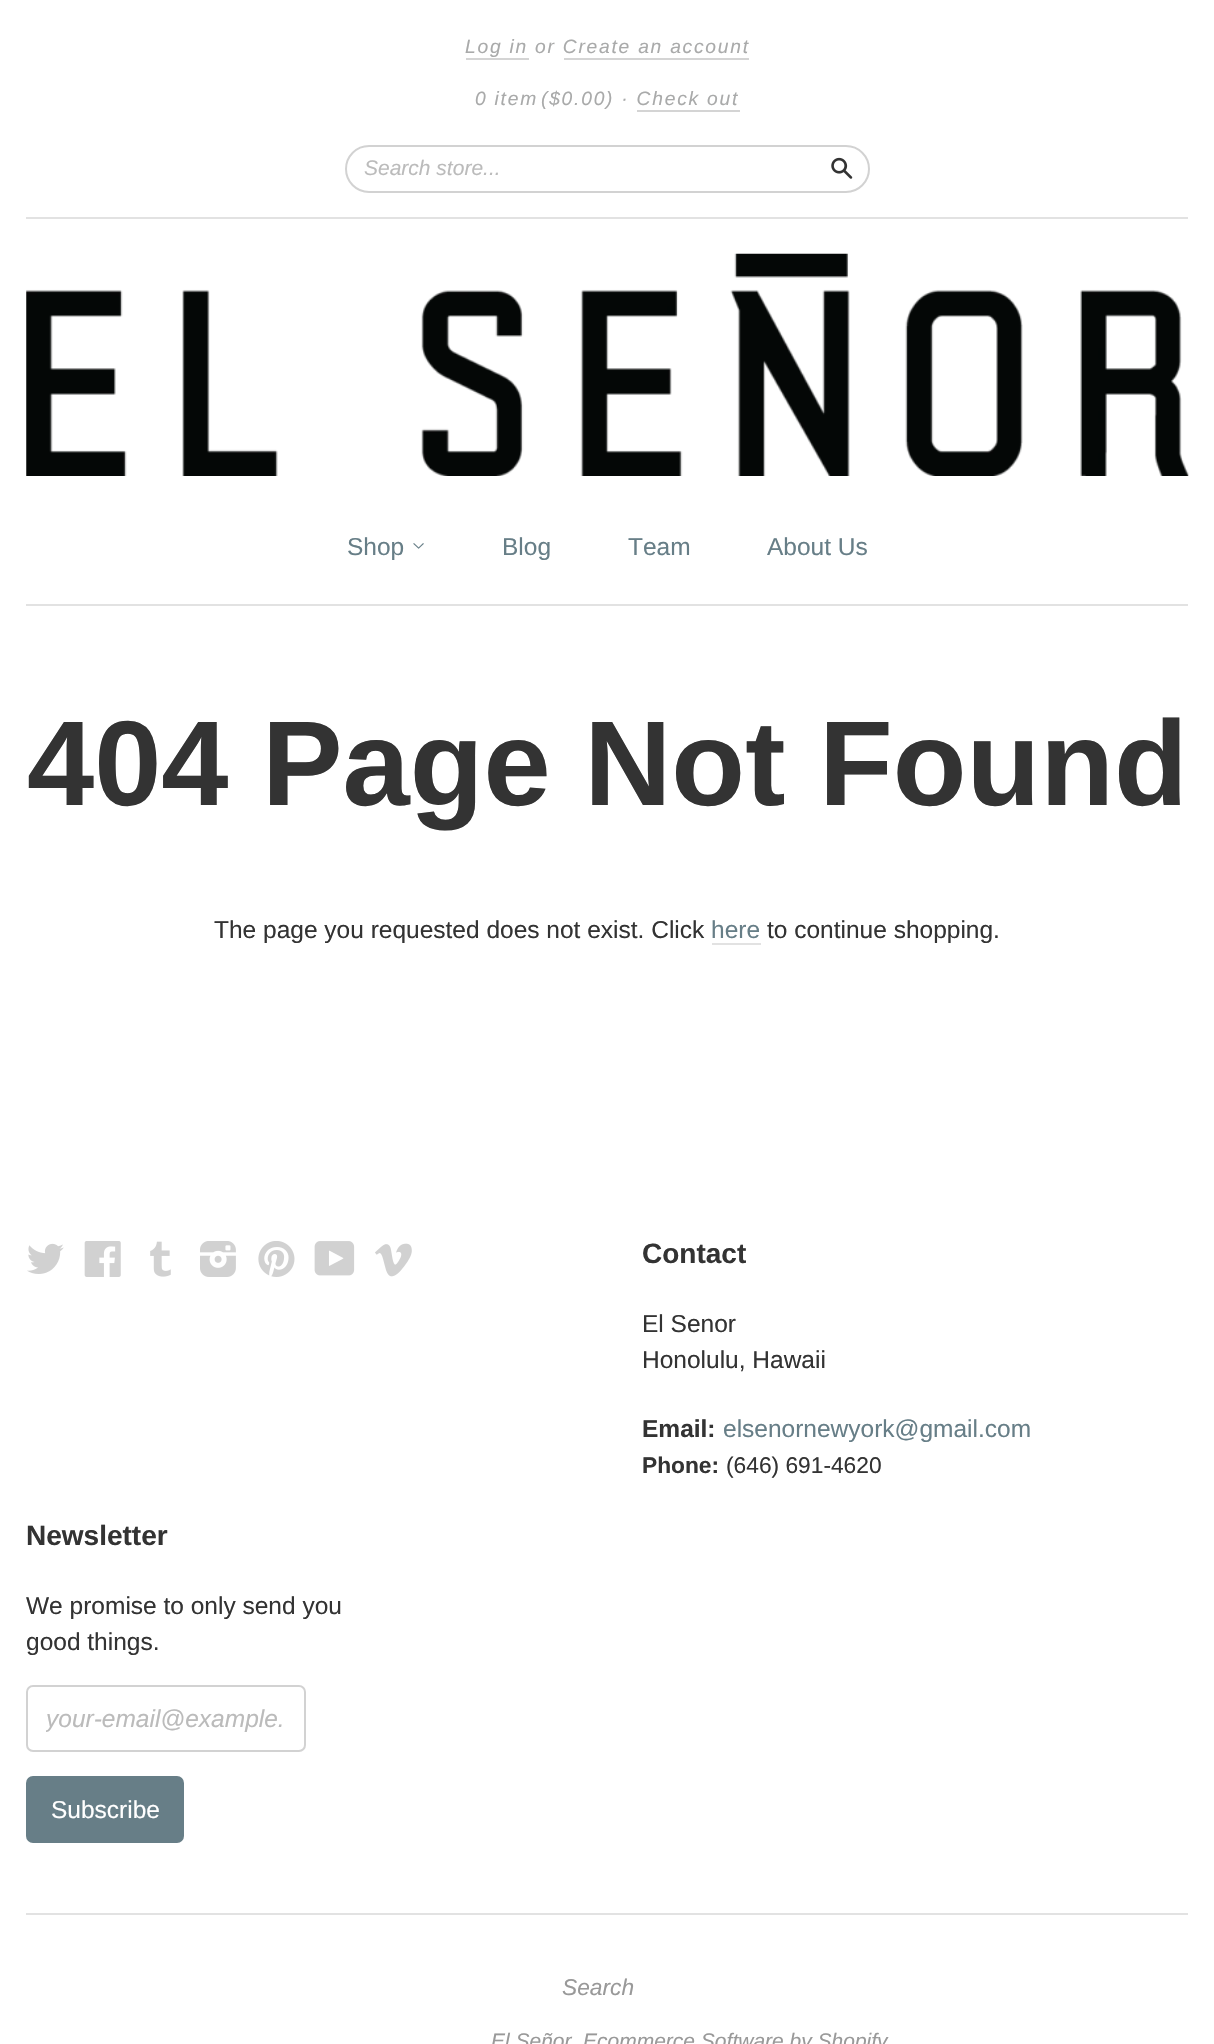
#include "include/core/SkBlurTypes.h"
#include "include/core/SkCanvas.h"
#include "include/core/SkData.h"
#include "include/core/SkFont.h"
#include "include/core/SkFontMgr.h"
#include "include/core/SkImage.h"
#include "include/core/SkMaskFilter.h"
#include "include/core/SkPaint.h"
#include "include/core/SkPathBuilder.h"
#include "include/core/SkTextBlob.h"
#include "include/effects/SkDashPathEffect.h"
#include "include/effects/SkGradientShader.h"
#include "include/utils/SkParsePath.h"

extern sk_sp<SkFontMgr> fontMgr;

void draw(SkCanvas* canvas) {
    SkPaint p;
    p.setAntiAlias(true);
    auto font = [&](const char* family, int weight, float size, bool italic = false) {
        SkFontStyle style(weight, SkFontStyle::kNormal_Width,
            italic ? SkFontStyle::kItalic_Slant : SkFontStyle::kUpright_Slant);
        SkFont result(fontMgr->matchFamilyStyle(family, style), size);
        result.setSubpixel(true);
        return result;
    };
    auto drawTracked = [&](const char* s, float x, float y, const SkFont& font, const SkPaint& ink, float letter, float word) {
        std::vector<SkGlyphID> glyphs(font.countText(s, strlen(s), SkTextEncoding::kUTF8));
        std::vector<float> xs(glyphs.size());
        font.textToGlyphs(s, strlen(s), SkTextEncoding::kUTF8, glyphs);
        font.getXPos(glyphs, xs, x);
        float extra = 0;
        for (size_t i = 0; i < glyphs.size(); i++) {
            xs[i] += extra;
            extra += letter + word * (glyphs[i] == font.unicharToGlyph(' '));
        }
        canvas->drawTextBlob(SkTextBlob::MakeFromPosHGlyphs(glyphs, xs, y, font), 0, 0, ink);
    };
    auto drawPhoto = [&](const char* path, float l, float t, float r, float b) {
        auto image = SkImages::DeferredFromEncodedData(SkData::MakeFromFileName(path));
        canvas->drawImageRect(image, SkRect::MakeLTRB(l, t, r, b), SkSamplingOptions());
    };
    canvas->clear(0xFFFFFFFF);
    p.setColor(0xFFE2E2E2);
    canvas->drawRect(SkRect::MakeLTRB(26, 604, 1188, 606), p);
    canvas->drawRect(SkRect::MakeLTRB(26, 217, 1188, 219), p);
    auto font1 = font("Liberation Sans", 400, 19.25f, true);
    p.setColor(0xFFA9AAAA);
    drawTracked("Log in or Create an account", 465, 53, font1, p, 1.75f, 0);
    p.setColor(0xFFD4D4D4);
    canvas->drawRect(SkRect::MakeLTRB(466, 58, 529, 60), p);
    canvas->drawRect(SkRect::MakeLTRB(564, 58, 749, 60), p);
    p.setColor(0xFFA9AAAA);
    drawTracked("0 item", 475, 105, font1, p, 1.75f, 0);
    drawTracked("($0.00) · Check out", 541, 105, font1, p, 1.75f, 0);
    p.setColor(0xFFD4D4D4);
    canvas->drawRect(SkRect::MakeLTRB(637, 110, 740, 112), p);
    p.setStyle(SkPaint::kStroke_Style);
    p.setStrokeWidth(2);
    p.setColor(0xFFD2D2D2);
    canvas->drawRoundRect(SkRect::MakeLTRB(346, 146, 869, 192), 23, 23, p);
    auto font2 = font("Liberation Sans", 400, 21, true);
    p.setStyle(SkPaint::kFill_Style);
    p.setColor(0xFFBBBBBB);
    canvas->drawString("Search store...", 364, 175, font2, p);
    drawPhoto("media/1.png", 831, 157, 853, 179);
    drawPhoto("media/2.png", 26, 253, 1189, 476);
    auto font3 = font("Liberation Sans", 400, 24.5f);
    p.setColor(0xFF677E87);
    canvas->drawString("Shop", 347, 555, font3, p);
    drawPhoto("media/3.png", 413, 543, 424, 549);
    {
        const struct { const char* s; float x, y; } items[] = {
            {"Blog", 502, 555},
            {"Team", 628, 555},
            {"About Us", 767, 555},
        };
        for (auto [s, x, y] : items) {
            canvas->drawString(s, x, y, font3, p);
        }
    }
    auto font4 = font("Liberation Sans", 700, 120.75f);
    p.setColor(0xFF333333);
    canvas->drawString("404 Page Not Found", 27, 805, font4, p);
    canvas->drawString("The page you requested does not exist. Click", 214, 938, font3, p);
    p.setColor(0xFF677E87);
    canvas->drawString("here", 711, 938, font3, p);
    p.setColor(0xFFE2E2E2);
    canvas->drawRect(SkRect::MakeLTRB(712, 943, 761, 945), p);
    p.setColor(0xFF333333);
    canvas->drawString("to continue shopping.", 767, 938, font3, p);
    drawPhoto("media/4.png", 27, 1243, 64, 1274);
    drawPhoto("media/5.png", 84, 1241, 121, 1277);
    drawPhoto("media/6.png", 150, 1241, 171, 1277);
    drawPhoto("media/7.png", 200, 1241, 236, 1277);
    drawPhoto("media/8.png", 258, 1241, 295, 1277);
    drawPhoto("media/9.png", 314, 1241, 355, 1276);
    drawPhoto("media/10.png", 375, 1243, 412, 1277);
    auto font5 = font("Liberation Sans", 700, 28);
    canvas->drawString("Contact", 642, 1263, font5, p);
    canvas->drawString("El Senor", 642, 1332, font3, p);
    canvas->drawString("Honolulu, Hawaii", 642, 1368, font3, p);
    auto font6 = font("Liberation Sans", 700, 24.5f);
    canvas->drawString("Email:", 642, 1437, font6, p);
    p.setColor(0xFF677E87);
    canvas->drawString("elsenornewyork@gmail.com", 723, 1437, font3, p);
    auto font7 = font("Liberation Sans", 700, 22.75f);
    p.setColor(0xFF333333);
    canvas->drawString("Phone:", 642, 1473, font7, p);
    auto font8 = font("Liberation Sans", 400, 22.75f);
    canvas->drawString("(646) 691-4620", 726, 1473, font8, p);
    canvas->drawString("Newsletter", 26, 1545, font5, p);
    canvas->drawString("We promise to only send you", 26, 1614, font3, p);
    canvas->drawString("good things.", 26, 1650, font3, p);
    p.setStyle(SkPaint::kStroke_Style);
    p.setColor(0xFFD2D2D2);
    canvas->drawRoundRect(SkRect::MakeLTRB(27, 1686, 305, 1751), 6, 6, p);
    canvas->save();
    canvas->clipRect(SkRect::MakeLTRB(46, 1705, 287, 1733));
    auto font9 = font("Liberation Sans", 400, 24.5f, true);
    p.setStyle(SkPaint::kFill_Style);
    p.setColor(0xFFBBBBBB);
    canvas->drawString("your-email@example.", 46, 1727, font9, p);
    canvas->restore();
    p.setColor(0xFF677E87);
    canvas->drawRoundRect(SkRect::MakeLTRB(26, 1776, 184, 1843), 7, 7, p);
    p.setColor(0xFFFFFFFF);
    canvas->drawString("Subscribe", 51, 1818, font3, p);
    p.setColor(0xFFE2E2E2);
    canvas->drawRect(SkRect::MakeLTRB(26, 1913, 1188, 1915), p);
    auto font10 = font("Liberation Sans", 400, 22.75f, true);
    p.setColor(0xFF999999);
    canvas->drawString("Search", 562, 1995, font10, p);
    canvas->drawString("El Señor", 491, 2048, font2, p);
    canvas->drawString("Ecommerce Software by Shopify", 583, 2048, font2, p);
}
